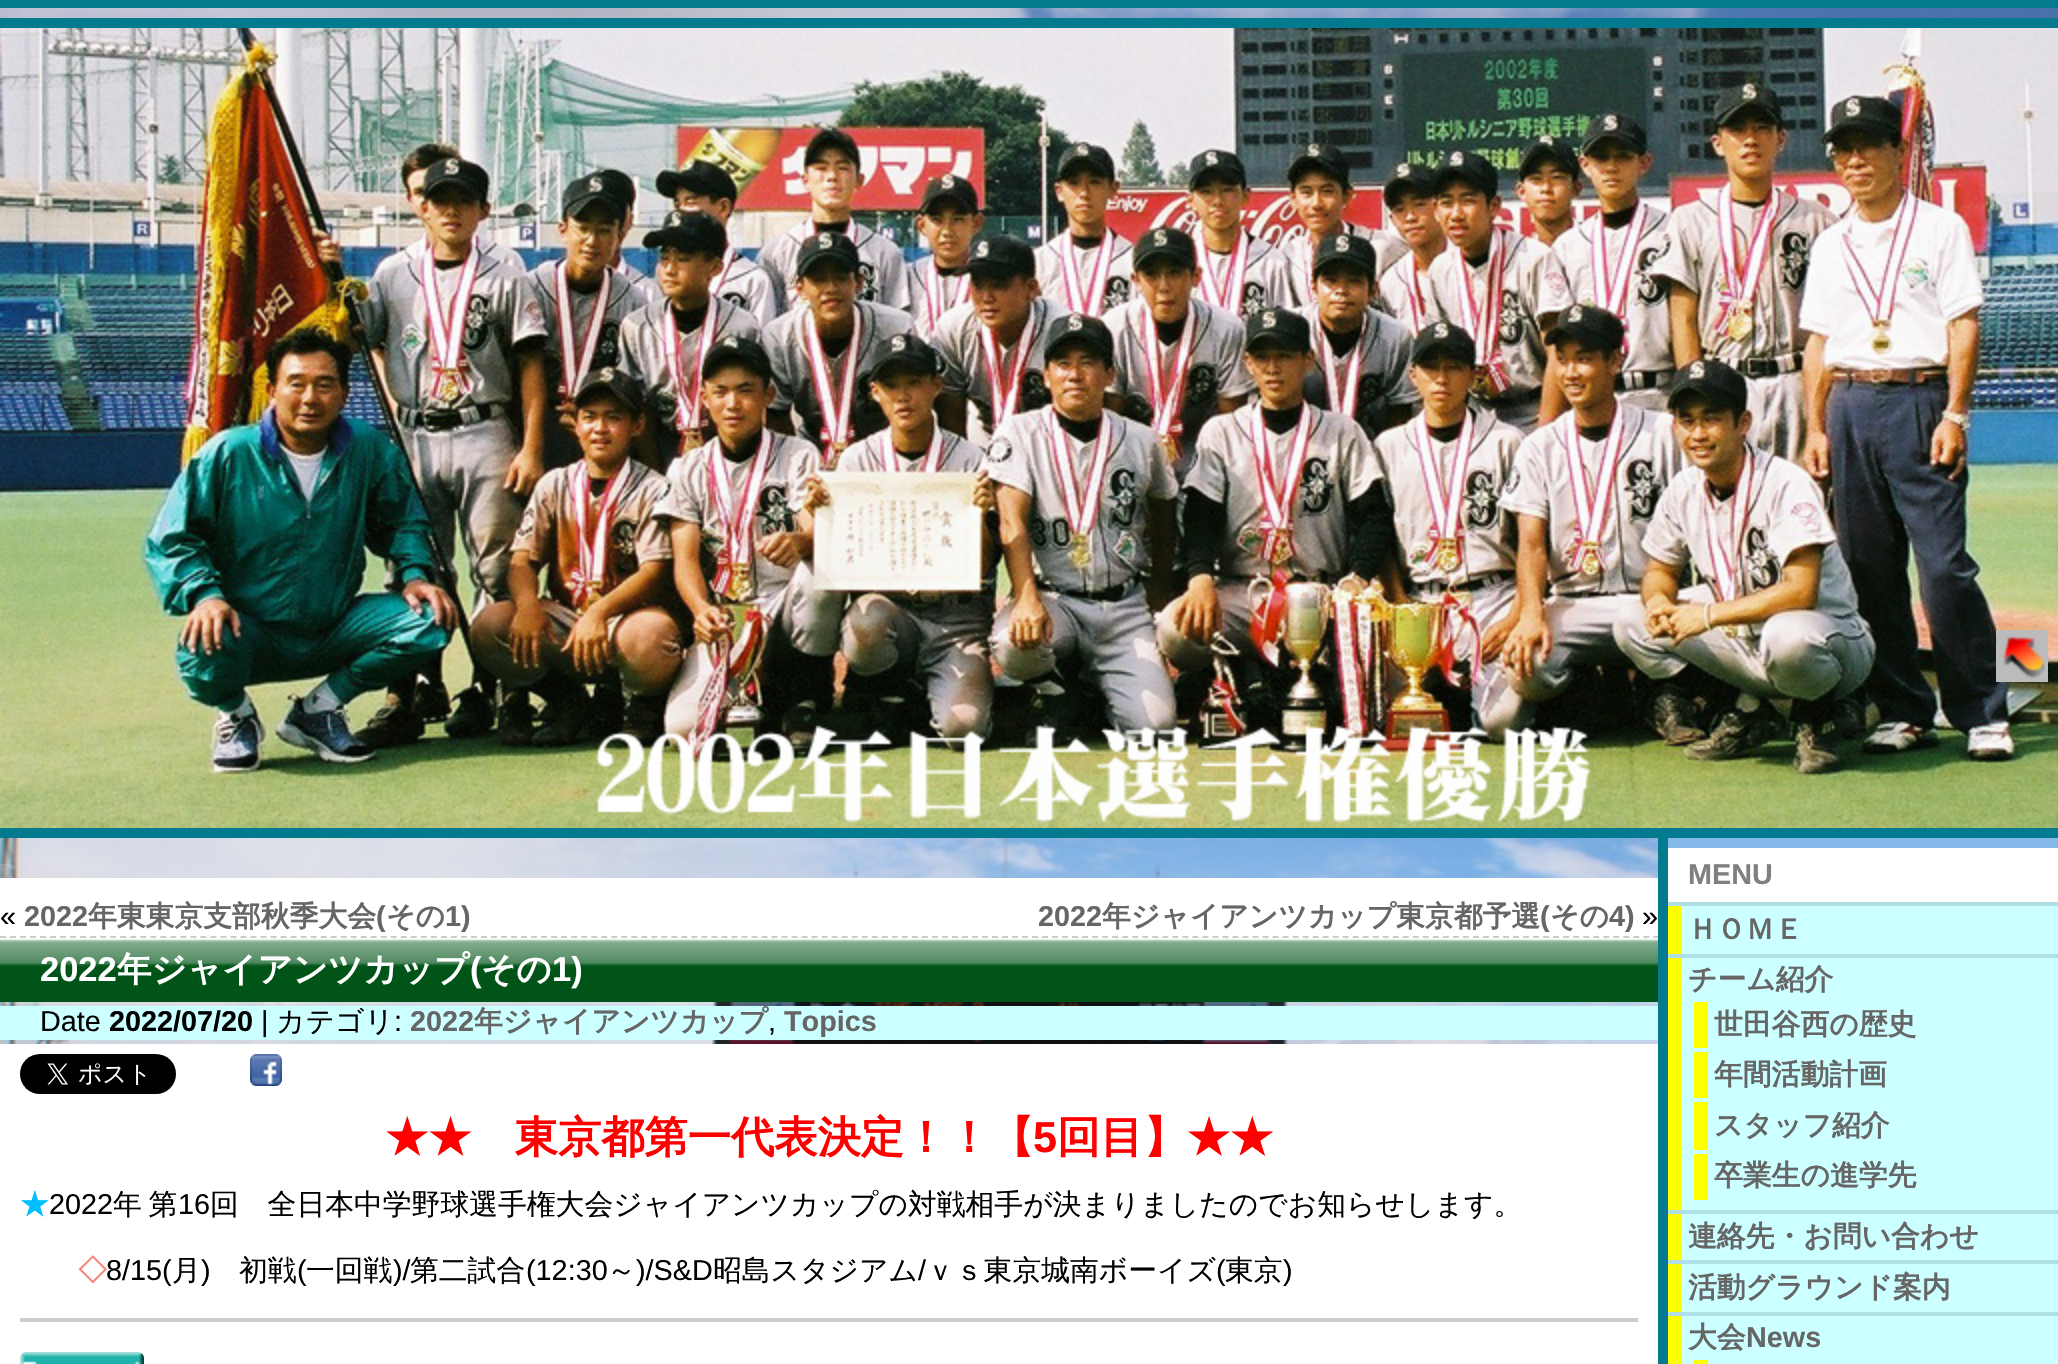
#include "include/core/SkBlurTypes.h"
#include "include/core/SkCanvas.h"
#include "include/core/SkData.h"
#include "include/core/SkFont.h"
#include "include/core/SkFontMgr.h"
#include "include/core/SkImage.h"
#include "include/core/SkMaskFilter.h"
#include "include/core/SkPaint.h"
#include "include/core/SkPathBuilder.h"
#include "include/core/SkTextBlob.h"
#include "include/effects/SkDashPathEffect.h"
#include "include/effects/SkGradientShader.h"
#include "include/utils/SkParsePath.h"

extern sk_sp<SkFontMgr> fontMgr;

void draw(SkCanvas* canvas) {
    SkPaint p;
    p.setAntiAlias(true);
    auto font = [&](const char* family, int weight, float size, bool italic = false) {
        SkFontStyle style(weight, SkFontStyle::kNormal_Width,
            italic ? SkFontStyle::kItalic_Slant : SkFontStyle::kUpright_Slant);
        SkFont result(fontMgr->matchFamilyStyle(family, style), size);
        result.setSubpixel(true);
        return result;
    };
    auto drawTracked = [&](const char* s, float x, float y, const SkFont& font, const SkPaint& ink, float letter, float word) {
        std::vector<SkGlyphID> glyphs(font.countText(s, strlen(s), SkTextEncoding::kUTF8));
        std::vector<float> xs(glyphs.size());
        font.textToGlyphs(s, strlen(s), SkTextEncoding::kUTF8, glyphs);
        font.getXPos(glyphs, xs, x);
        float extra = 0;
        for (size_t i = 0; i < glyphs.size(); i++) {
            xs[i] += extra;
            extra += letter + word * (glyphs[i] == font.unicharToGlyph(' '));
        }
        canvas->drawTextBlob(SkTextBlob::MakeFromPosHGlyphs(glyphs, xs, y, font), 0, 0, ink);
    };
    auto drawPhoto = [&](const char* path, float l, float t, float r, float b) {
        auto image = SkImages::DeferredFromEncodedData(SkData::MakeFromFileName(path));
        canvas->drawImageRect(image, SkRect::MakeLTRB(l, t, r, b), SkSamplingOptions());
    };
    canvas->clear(0xFFFFFFFF);
    drawPhoto("media/1.png", 0, 8, 2058, 1044);
    p.setColor(0xFF037A8E);
    canvas->drawRect(SkRect::MakeLTRB(0, 0, 2058, 8), p);
    canvas->drawRect(SkRect::MakeLTRB(0, 18, 2058, 28), p);
    drawPhoto("media/2.png", 0, 28, 2058, 828);
    canvas->drawRect(SkRect::MakeLTRB(0, 828, 2058, 838), p);
    drawPhoto("media/3.png", 1996, 630, 2048, 682);
    p.setColor(0xFFFFFFFF);
    canvas->drawRect(SkRect::MakeLTRB(0, 878, 1658, 938), p);
    p.setStyle(SkPaint::kStroke_Style);
    p.setStrokeWidth(2);
    p.setColor(0xFFCCCCCC);
    p.setPathEffect(SkDashPathEffect::Make({{6, 4.02f}}, 0));
    canvas->drawPath(SkPathBuilder().moveTo(0, 937).lineTo(1658, 937).detach(), p);
    p.setPathEffect(nullptr);
    auto font1 = font("Liberation Sans", 400, 28.8f);
    p.setStyle(SkPaint::kFill_Style);
    p.setColor(0xFF000000);
    canvas->drawString("«", 0, 926, font1, p);
    auto font2 = font("Liberation Sans", 700, 28.8f);
    p.setColor(0xFF666666);
    canvas->drawString("2022", 24, 926, font2, p);
    auto font3 = font("WenQuanYi Zen Hei", 700, 28.8f);
    canvas->drawString("年東東京支部秋季大会", 88, 926, font3, p);
    canvas->drawString("(", 376, 926, font2, p);
    canvas->drawString("その", 386, 926, font3, p);
    canvas->drawString("1)", 445, 926, font2, p);
    canvas->drawString("2022", 1038, 926, font2, p);
    canvas->drawString("年ジャイアンツカップ東京都予選", 1102, 926, font3, p);
    canvas->drawString("(", 1540, 926, font2, p);
    canvas->drawString("その", 1550, 926, font3, p);
    canvas->drawString("4)", 1609, 926, font2, p);
    p.setColor(0xFF000000);
    canvas->drawString("»", 1642, 926, font1, p);
    drawPhoto("media/4.png", 0, 938, 1658, 1002);
    auto font4 = font("Liberation Sans", 700, 34.5f);
    p.setColor(0xFFFFFFFF);
    canvas->drawString("2022", 40, 981, font4, p);
    auto font5 = font("WenQuanYi Zen Hei", 700, 34.5f);
    canvas->drawString("年ジャイアンツカップ", 117, 981, font5, p);
    canvas->drawString("(", 470, 981, font4, p);
    canvas->drawString("その", 481, 981, font5, p);
    canvas->drawString("1)", 552, 981, font4, p);
    p.setColor(0xFFCCFFFF);
    canvas->drawRect(SkRect::MakeLTRB(0, 1006, 1658, 1040), p);
    p.setColor(0xFF000000);
    canvas->drawString("Date", 40, 1031, font1, p);
    canvas->drawString("2022/07/20", 109, 1031, font2, p);
    canvas->drawString("|", 261, 1031, font1, p);
    auto font6 = font("WenQuanYi Zen Hei", 500, 28.8f);
    canvas->drawString("カテゴリ", 276, 1031, font6, p);
    canvas->drawString(":", 394, 1031, font1, p);
    p.setColor(0xFF666666);
    canvas->drawString("2022", 410, 1031, font2, p);
    canvas->drawString("年ジャイアンツカップ", 474, 1031, font3, p);
    p.setColor(0xFF000000);
    canvas->drawString(",", 768, 1031, font1, p);
    p.setColor(0xFF666666);
    canvas->drawString("Topics", 784, 1031, font2, p);
    drawPhoto("media/5.png", 20, 1054, 176, 1094);
    drawPhoto("media/6.png", 250, 1054, 282, 1086);
    auto font7 = font("WenQuanYi Zen Hei", 700, 43.25f);
    p.setColor(0xFFFF0000);
    canvas->drawString("★★　東京都第一代表決定！！【", 385, 1152, font7, p);
    auto font8 = font("Liberation Sans", 700, 43.25f);
    canvas->drawString("5", 1033, 1152, font8, p);
    canvas->drawString("回目】★★", 1057, 1152, font7, p);
    p.setColor(0xFF00BFFF);
    canvas->drawString("★", 20, 1214, font3, p);
    p.setColor(0xFF000000);
    canvas->drawString("2022", 49, 1214, font1, p);
    drawTracked("年 第", 113, 1214, font6, p, 0, -2);
    canvas->drawString("16", 178, 1214, font1, p);
    canvas->drawString("回　全日本中学野球選手権大会ジャイアンツカップの対戦相手が決まりましたのでお知らせします。", 210, 1214, font6, p);
    p.setColor(0xFFFA8072);
    canvas->drawString("◇", 78, 1280, font3, p);
    p.setColor(0xFF000000);
    canvas->drawString("8/15(", 106, 1280, font1, p);
    canvas->drawString("月", 172, 1280, font6, p);
    canvas->drawString(")", 201, 1280, font1, p);
    canvas->drawString("初戦", 239, 1280, font6, p);
    canvas->drawString("(", 297, 1280, font1, p);
    canvas->drawString("一回戦", 306, 1280, font6, p);
    canvas->drawString(")/", 393, 1280, font1, p);
    canvas->drawString("第二試合", 410, 1280, font6, p);
    canvas->drawString("(12:30", 526, 1280, font1, p);
    canvas->drawString("～", 607, 1280, font6, p);
    canvas->drawString(")/S&D", 636, 1280, font1, p);
    canvas->drawString("昭島スタジアム", 713, 1280, font6, p);
    canvas->drawString("/", 918, 1280, font1, p);
    canvas->drawString("ｖｓ東京城南ボーイズ", 926, 1280, font6, p);
    canvas->drawString("(", 1216, 1280, font1, p);
    canvas->drawString("東京", 1225, 1280, font6, p);
    canvas->drawString(")", 1283, 1280, font1, p);
    p.setColor(0xFFCCCCCC);
    canvas->drawRect(SkRect::MakeLTRB(20, 1318, 1638, 1322), p);
    drawPhoto("media/7.png", 20, 1352, 144, 1364);
    {
        const struct { float l, t, r, b; SkColor color; } items[] = {
            {1668, 902, 2058, 1316, 0xFFB0E0E6},
            {1658, 838, 1668, 1364, 0xFF037A8E},
            {1668, 848, 2058, 902, 0xFFFFFFFF},
            {1668, 838, 2058, 848, 0xFF85B9E9},
        };
        for (auto [l, t, r, b, color] : items) {
            p.setColor(color);
            canvas->drawRect(SkRect::MakeLTRB(l, t, r, b), p);
        }
    }
    p.setColor(0xFF808080);
    canvas->drawString("MENU", 1688, 884, font2, p);
    p.setColor(0xFFCCFFFF);
    canvas->drawRect(SkRect::MakeLTRB(1682, 906, 2058, 954), p);
    p.setColor(0xFFFFFF00);
    canvas->drawRect(SkRect::MakeLTRB(1668, 906, 1682, 954), p);
    p.setColor(0xFF666666);
    canvas->drawString("ＨＯＭＥ", 1688, 939, font3, p);
    p.setColor(0xFFCCFFFF);
    canvas->drawRect(SkRect::MakeLTRB(1682, 958, 2058, 1210), p);
    p.setColor(0xFFFFFF00);
    canvas->drawRect(SkRect::MakeLTRB(1668, 958, 1682, 1210), p);
    p.setColor(0xFF666666);
    canvas->drawString("チーム紹介", 1688, 989, font3, p);
    p.setColor(0xFFFFFF00);
    canvas->drawRect(SkRect::MakeLTRB(1694, 1002, 1708, 1048), p);
    p.setColor(0xFF666666);
    canvas->drawString("世田谷西の歴史", 1714, 1034, font3, p);
    p.setColor(0xFFFFFF00);
    canvas->drawRect(SkRect::MakeLTRB(1694, 1052, 1708, 1098), p);
    p.setColor(0xFF666666);
    canvas->drawString("年間活動計画", 1714, 1084, font3, p);
    p.setColor(0xFFFFFF00);
    canvas->drawRect(SkRect::MakeLTRB(1694, 1102, 1708, 1150), p);
    p.setColor(0xFF666666);
    canvas->drawString("スタッフ紹介", 1714, 1135, font3, p);
    p.setColor(0xFFFFFF00);
    canvas->drawRect(SkRect::MakeLTRB(1694, 1154, 1708, 1200), p);
    p.setColor(0xFF666666);
    canvas->drawString("卒業生の進学先", 1714, 1185, font3, p);
    p.setColor(0xFFCCFFFF);
    canvas->drawRect(SkRect::MakeLTRB(1682, 1214, 2058, 1260), p);
    p.setColor(0xFFFFFF00);
    canvas->drawRect(SkRect::MakeLTRB(1668, 1214, 1682, 1260), p);
    p.setColor(0xFF666666);
    canvas->drawString("連絡先・お問い合わせ", 1688, 1246, font3, p);
    p.setColor(0xFFCCFFFF);
    canvas->drawRect(SkRect::MakeLTRB(1682, 1264, 2058, 1312), p);
    p.setColor(0xFFFFFF00);
    canvas->drawRect(SkRect::MakeLTRB(1668, 1264, 1682, 1312), p);
    p.setColor(0xFF666666);
    canvas->drawString("活動グラウンド案内", 1688, 1297, font3, p);
    p.setColor(0xFFCCFFFF);
    canvas->drawRect(SkRect::MakeLTRB(1682, 1316, 2058, 1364), p);
    p.setColor(0xFFFFFF00);
    canvas->drawRect(SkRect::MakeLTRB(1668, 1316, 1682, 1364), p);
    p.setColor(0xFF666666);
    canvas->drawString("大会", 1688, 1347, font3, p);
    canvas->drawString("News", 1746, 1347, font2, p);
    p.setColor(0xFFFFFF00);
    canvas->drawRect(SkRect::MakeLTRB(1694, 1360, 1708, 1364), p);
}
